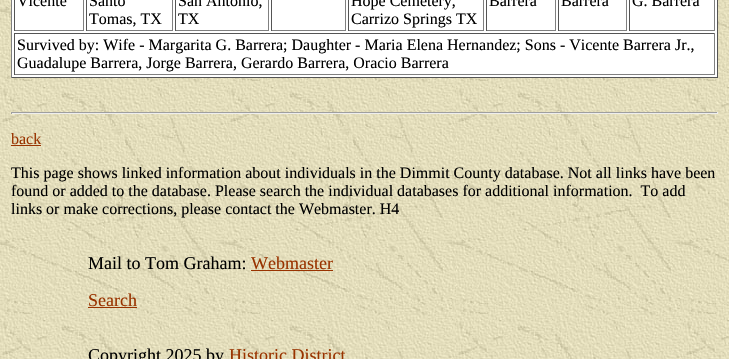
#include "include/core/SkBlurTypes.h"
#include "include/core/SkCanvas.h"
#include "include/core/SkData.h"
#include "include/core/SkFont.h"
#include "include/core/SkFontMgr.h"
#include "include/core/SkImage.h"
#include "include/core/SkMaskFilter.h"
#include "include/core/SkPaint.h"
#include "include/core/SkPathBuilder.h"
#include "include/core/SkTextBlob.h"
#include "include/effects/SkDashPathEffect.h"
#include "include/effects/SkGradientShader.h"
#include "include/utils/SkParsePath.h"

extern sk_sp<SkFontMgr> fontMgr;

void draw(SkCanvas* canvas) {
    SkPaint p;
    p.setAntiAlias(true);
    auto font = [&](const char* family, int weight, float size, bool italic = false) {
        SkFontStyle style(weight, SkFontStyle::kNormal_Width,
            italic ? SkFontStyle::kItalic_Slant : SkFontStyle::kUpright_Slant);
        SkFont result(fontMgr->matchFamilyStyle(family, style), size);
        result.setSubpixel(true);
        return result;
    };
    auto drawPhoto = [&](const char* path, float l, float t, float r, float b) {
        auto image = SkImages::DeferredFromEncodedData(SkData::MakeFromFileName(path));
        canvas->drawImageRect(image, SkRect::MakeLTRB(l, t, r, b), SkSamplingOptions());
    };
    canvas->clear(0xFFFFFFFF);
    drawPhoto("media/1.png", 0, 0, 729, 359);
    {
        const struct { float l, t, r, b; SkColor color; } items[] = {
            {12, 0, 717, 77, 0xFFFFFFFF},
            {717, 0, 718, 78, 0xFF555555},
            {11, 77, 718, 78, 0xFF555555},
            {11, 0, 12, 78, 0xFF808080},
            {83, 0, 84, 31, 0xFF808080},
            {14, 30, 84, 31, 0xFF808080},
            {14, 0, 15, 31, 0xFF555555},
        };
        for (auto [l, t, r, b, color] : items) {
            p.setColor(color);
            canvas->drawRect(SkRect::MakeLTRB(l, t, r, b), p);
        }
    }
    auto font1 = font("Liberation Serif", 400, 16);
    p.setColor(0xFF000000);
    canvas->drawString("Vicente", 17, 6, font1, p);
    {
        const struct { float l, t, r, b; SkColor color; } items[] = {
            {172, 0, 173, 31, 0xFF808080},
            {86, 30, 173, 31, 0xFF808080},
            {86, 0, 87, 31, 0xFF555555},
        };
        for (auto [l, t, r, b, color] : items) {
            p.setColor(color);
            canvas->drawRect(SkRect::MakeLTRB(l, t, r, b), p);
        }
    }
    p.setColor(0xFF000000);
    canvas->drawString("Santo", 89, 6, font1, p);
    canvas->drawString("Tomas, TX", 89, 24, font1, p);
    {
        const struct { float l, t, r, b; SkColor color; } items[] = {
            {268, 0, 269, 31, 0xFF808080},
            {175, 30, 269, 31, 0xFF808080},
            {175, 0, 176, 31, 0xFF555555},
        };
        for (auto [l, t, r, b, color] : items) {
            p.setColor(color);
            canvas->drawRect(SkRect::MakeLTRB(l, t, r, b), p);
        }
    }
    p.setColor(0xFF000000);
    canvas->drawString("San Antonio,", 178, 6, font1, p);
    canvas->drawString("TX", 178, 24, font1, p);
    {
        const struct { float l, t, r, b; SkColor color; } items[] = {
            {345, 0, 346, 31, 0xFF808080},
            {271, 30, 346, 31, 0xFF808080},
            {271, 0, 272, 31, 0xFF555555},
            {483, 0, 484, 31, 0xFF808080},
            {348, 30, 484, 31, 0xFF808080},
            {348, 0, 349, 31, 0xFF555555},
        };
        for (auto [l, t, r, b, color] : items) {
            p.setColor(color);
            canvas->drawRect(SkRect::MakeLTRB(l, t, r, b), p);
        }
    }
    p.setColor(0xFF000000);
    canvas->drawString("Hope Cemetery,", 351, 6, font1, p);
    canvas->drawString("Carrizo Springs TX", 351, 24, font1, p);
    {
        const struct { float l, t, r, b; SkColor color; } items[] = {
            {555, 0, 556, 31, 0xFF808080},
            {486, 30, 556, 31, 0xFF808080},
            {486, 0, 487, 31, 0xFF555555},
        };
        for (auto [l, t, r, b, color] : items) {
            p.setColor(color);
            canvas->drawRect(SkRect::MakeLTRB(l, t, r, b), p);
        }
    }
    p.setColor(0xFF000000);
    canvas->drawString("Barrera", 489, 6, font1, p);
    {
        const struct { float l, t, r, b; SkColor color; } items[] = {
            {626, 0, 627, 31, 0xFF808080},
            {558, 30, 627, 31, 0xFF808080},
            {558, 0, 559, 31, 0xFF555555},
        };
        for (auto [l, t, r, b, color] : items) {
            p.setColor(color);
            canvas->drawRect(SkRect::MakeLTRB(l, t, r, b), p);
        }
    }
    p.setColor(0xFF000000);
    canvas->drawString("Barrera", 561, 6, font1, p);
    {
        const struct { float l, t, r, b; SkColor color; } items[] = {
            {714, 0, 715, 31, 0xFF808080},
            {629, 30, 715, 31, 0xFF808080},
            {629, 0, 630, 31, 0xFF555555},
        };
        for (auto [l, t, r, b, color] : items) {
            p.setColor(color);
            canvas->drawRect(SkRect::MakeLTRB(l, t, r, b), p);
        }
    }
    p.setColor(0xFF000000);
    canvas->drawString("G. Barrera", 632, 6, font1, p);
    {
        const struct { float l, t, r, b; SkColor color; } items[] = {
            {14, 33, 715, 34, 0xFF555555},
            {714, 33, 715, 75, 0xFF808080},
            {14, 74, 715, 75, 0xFF808080},
            {14, 33, 15, 75, 0xFF555555},
        };
        for (auto [l, t, r, b, color] : items) {
            p.setColor(color);
            canvas->drawRect(SkRect::MakeLTRB(l, t, r, b), p);
        }
    }
    p.setColor(0xFF000000);
    canvas->drawString("Survived by: Wife - Margarita G. Barrera; Daughter - Maria Elena Hernandez; Sons - Vicente Barrera Jr.,", 17, 50, font1, p);
    canvas->drawString("Guadalupe Barrera, Jorge Barrera, Gerardo Barrera, Oracio Barrera", 17, 68, font1, p);
    {
        const struct { float l, t, r, b; SkColor color; } items[] = {
            {11, 112, 718, 113, 0xFF9F9F9F},
            {717, 112, 718, 114, 0xFFEEEEEE},
            {11, 113, 718, 114, 0xFFEEEEEE},
            {11, 112, 12, 114, 0xFF9F9F9F},
        };
        for (auto [l, t, r, b, color] : items) {
            p.setColor(color);
            canvas->drawRect(SkRect::MakeLTRB(l, t, r, b), p);
        }
    }
    p.setColor(0xFF993300);
    canvas->drawString("back", 11, 144, font1, p);
    canvas->drawRect(SkRect::MakeLTRB(11, 145, 41, 146), p);
    p.setColor(0xFF000000);
    {
        const struct { const char* s; float x, y; } items[] = {
            {"This page shows linked information about individuals in the Dimmit County database. Not all links have been", 11, 178},
            {"found or added to the database. Please search the individual databases for additional information.  To add", 11, 196},
            {"links or make corrections, please contact the Webmaster. H4", 11, 214},
        };
        for (auto [s, x, y] : items) {
            canvas->drawString(s, x, y, font1, p);
        }
    }
    auto font2 = font("Liberation Serif", 400, 18);
    canvas->drawString("Mail to Tom Graham:", 88, 269, font2, p);
    p.setColor(0xFF993300);
    canvas->drawString("Webmaster", 251, 269, font2, p);
    canvas->drawRect(SkRect::MakeLTRB(251, 270, 333, 271), p);
    canvas->drawString("Search", 88, 306, font2, p);
    canvas->drawRect(SkRect::MakeLTRB(88, 307, 137, 308), p);
    p.setColor(0xFF000000);
    canvas->drawString("Copyright 2025 by", 88, 361, font2, p);
    p.setColor(0xFF993300);
    canvas->drawString("Historic District", 229, 361, font2, p);
}
